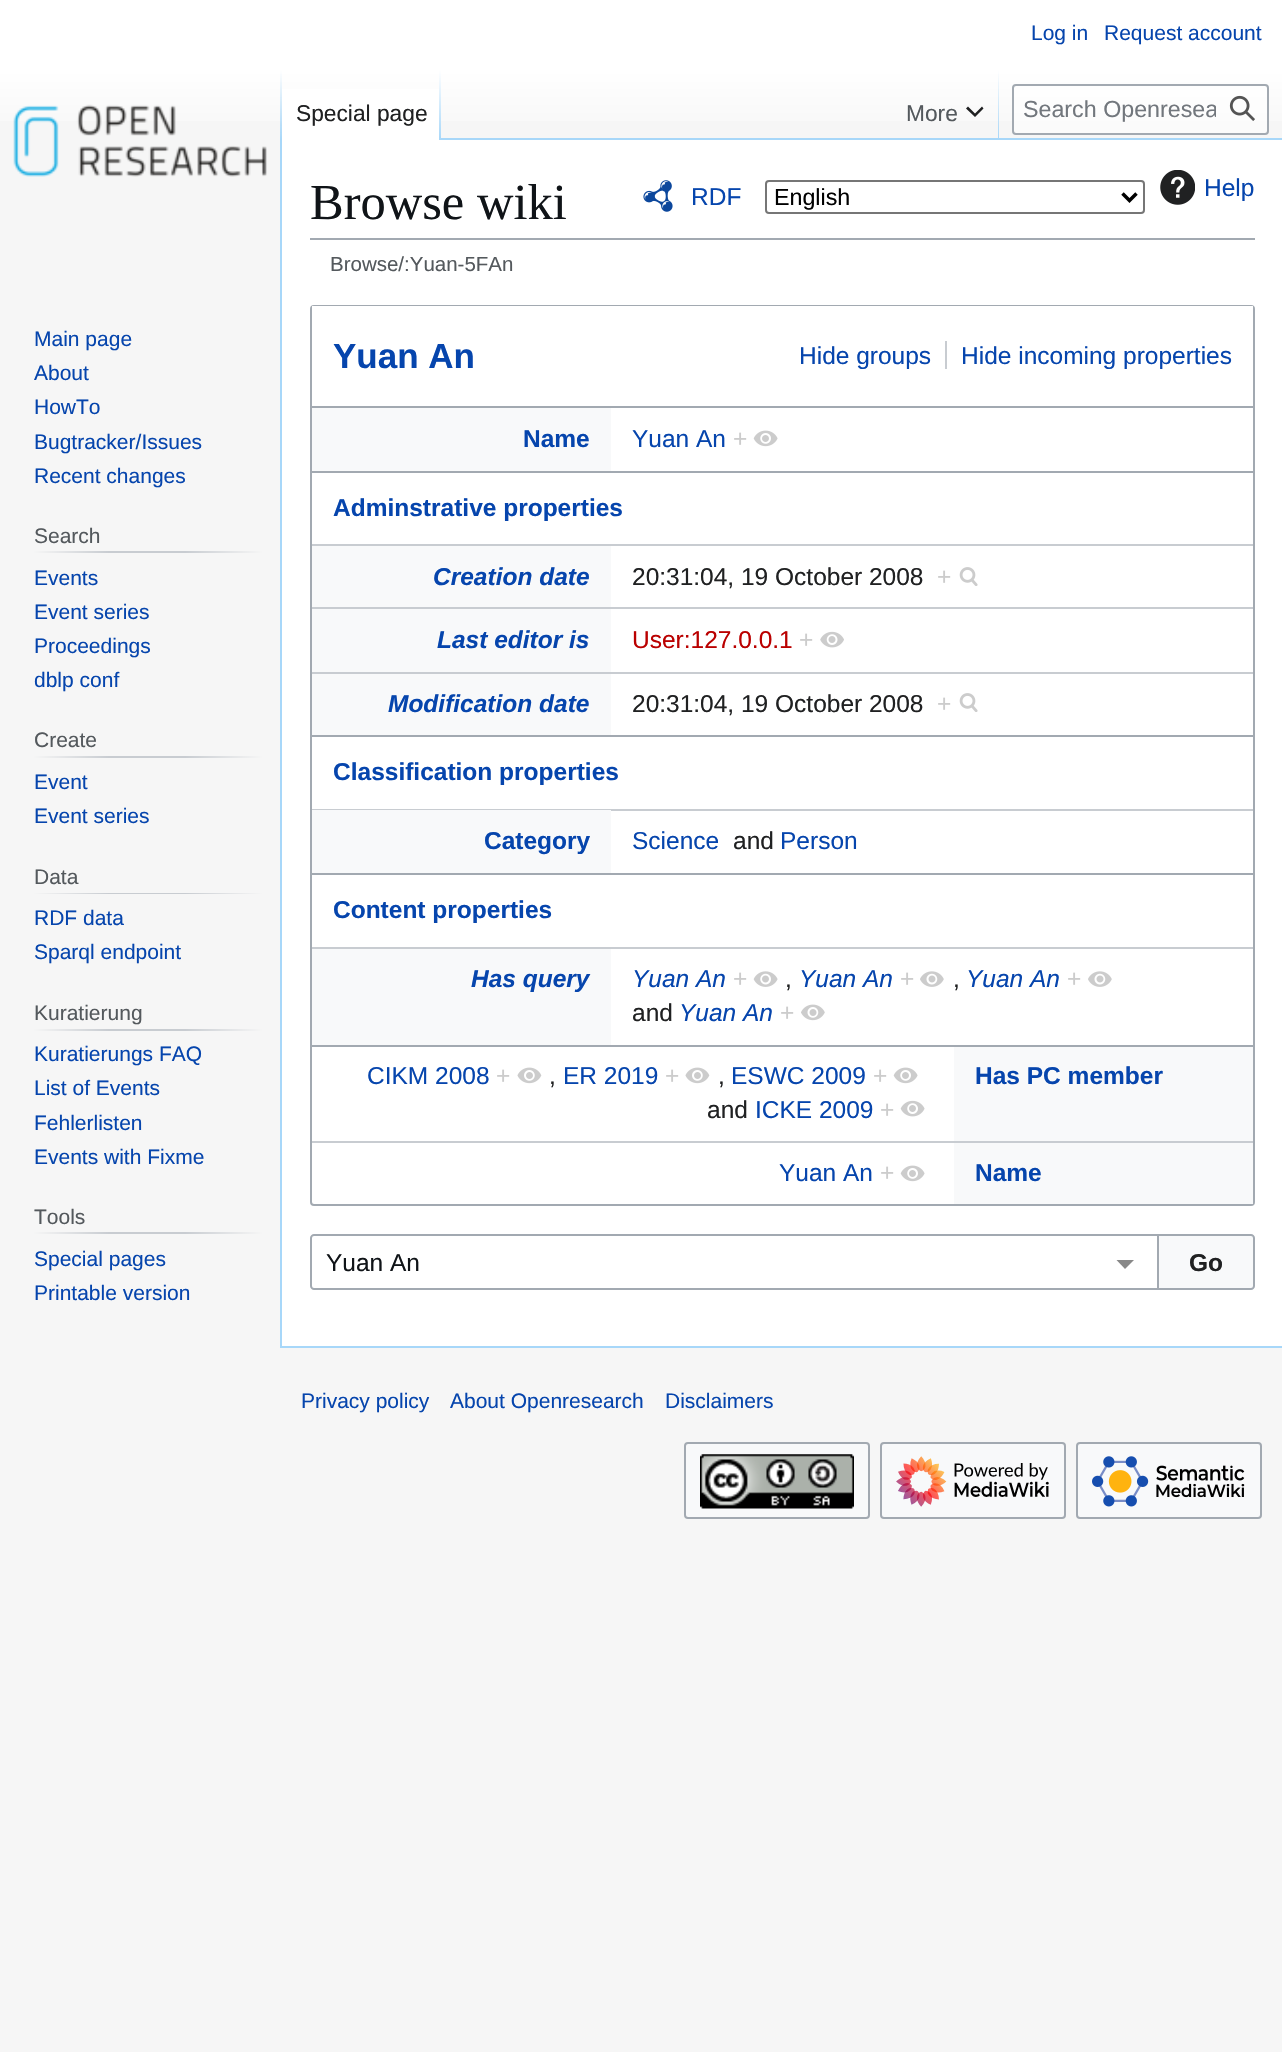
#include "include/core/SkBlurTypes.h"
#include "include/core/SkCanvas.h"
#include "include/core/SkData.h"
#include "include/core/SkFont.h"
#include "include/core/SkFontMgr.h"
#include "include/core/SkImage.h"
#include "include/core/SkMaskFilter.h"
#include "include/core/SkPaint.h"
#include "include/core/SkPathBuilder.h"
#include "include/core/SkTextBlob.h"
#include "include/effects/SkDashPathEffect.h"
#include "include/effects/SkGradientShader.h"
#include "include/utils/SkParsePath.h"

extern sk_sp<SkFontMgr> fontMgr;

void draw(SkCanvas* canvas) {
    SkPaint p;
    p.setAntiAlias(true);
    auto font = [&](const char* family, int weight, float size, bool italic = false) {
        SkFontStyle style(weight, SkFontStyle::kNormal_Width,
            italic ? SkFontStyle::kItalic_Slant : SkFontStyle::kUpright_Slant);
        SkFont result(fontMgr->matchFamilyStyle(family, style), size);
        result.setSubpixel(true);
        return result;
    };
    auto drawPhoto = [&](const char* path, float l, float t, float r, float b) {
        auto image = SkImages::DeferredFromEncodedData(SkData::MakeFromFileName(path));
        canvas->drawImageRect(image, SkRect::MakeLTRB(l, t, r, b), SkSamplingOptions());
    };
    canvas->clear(0xFFF6F6F6);
    {
        const SkColor colors[] = {0xFFFFFFFF, 0xFFF6F6F6};
        const float stops[] = {0.5f, 1};
        const SkPoint ends[] = {{641, 0}, {641, 140}};
        p.setShader(SkGradientShader::MakeLinear(ends, colors, stops, 2, SkTileMode::kClamp));
        p.setAlpha(255);
    }
    canvas->drawRect(SkRect::MakeLTRB(0, 0, 1282, 121), p);
    auto font1 = font("Liberation Sans", 400, 21);
    p.setShader(nullptr);
    p.setColor(0xFF0645AD);
    canvas->drawString("Log in", 1031, 40, font1, p);
    canvas->drawString("Request account", 1104, 40, font1, p);
    p.setColor(0xFFA7D7F9);
    canvas->drawRect(SkRect::MakeLTRB(280, 1346, 1282, 1348), p);
    canvas->drawRect(SkRect::MakeLTRB(280, 138, 282, 1348), p);
    {
        const SkColor colors[] = {0x00A7D7F9, 0xFFA7D7F9};
        const float stops[] = {0, 1};
        const SkPoint ends[] = {{281, 70}, {281, 140}};
        p.setShader(SkGradientShader::MakeLinear(ends, colors, stops, 2, SkTileMode::kClamp));
        p.setAlpha(255);
    }
    canvas->drawRect(SkRect::MakeLTRB(280, 70, 282, 140), p);
    p.setShader(nullptr);
    p.setColor(0xFFFFFFFF);
    canvas->drawRect(SkRect::MakeLTRB(282, 89, 439, 140), p);
    {
        const SkColor colors[] = {0xFFFFFFFF, 0xFFA7D7F9};
        const float stops[] = {0, 1};
        const SkPoint ends[] = {{440, 70}, {440, 140}};
        p.setShader(SkGradientShader::MakeLinear(ends, colors, stops, 2, SkTileMode::kClamp));
        p.setAlpha(255);
    }
    canvas->drawRect(SkRect::MakeLTRB(439, 70, 441, 140), p);
    auto font2 = font("Liberation Sans", 400, 22.75f);
    p.setShader(nullptr);
    p.setColor(0xFF202122);
    canvas->drawString("Special page", 296, 121, font2, p);
    p.setColor(0xFFA7D7F9);
    canvas->drawRect(SkRect::MakeLTRB(441, 138, 1282, 140), p);
    {
        const SkColor colors[] = {0x00A7D7F9, 0xFFA7D7F9};
        const float stops[] = {0, 1};
        const SkPoint ends[] = {{998, 70}, {998, 140}};
        p.setShader(SkGradientShader::MakeLinear(ends, colors, stops, 2, SkTileMode::kClamp));
        p.setAlpha(255);
    }
    canvas->drawRect(SkRect::MakeLTRB(998, 70, 999, 140), p);
    p.setShader(nullptr);
    p.setColor(0xFF54595D);
    canvas->drawString("More", 906, 121, font2, p);
    p.setColor(0xFF202122);
    canvas->drawPath(SkPathBuilder().moveTo(983.5f, 108.5f).lineTo(982, 106.5f).lineTo(975, 113.5f).lineTo(968, 106.5f).lineTo(966, 108.5f).lineTo(975, 117).close().detach(), p);
    p.setColor(0x80FFFFFF);
    canvas->drawRoundRect(SkRect::MakeLTRB(1013, 85, 1268, 134), 3, 3, p);
    p.setStyle(SkPaint::kStroke_Style);
    p.setStrokeWidth(2);
    p.setColor(0xFFA2A9B1);
    canvas->drawRoundRect(SkRect::MakeLTRB(1013, 85, 1268, 134), 3, 3, p);
    canvas->save();
    canvas->clipRect(SkRect::MakeLTRB(1024, 96, 1216, 123));
    auto font3 = font("Liberation Sans", 400, 23.25f);
    p.setStyle(SkPaint::kFill_Style);
    p.setColor(0xFF72777D);
    canvas->drawString("Search Openresea", 1023, 117, font3, p);
    canvas->restore();
    drawPhoto("media/1.png", 1229, 95, 1255, 121);
    drawPhoto("media/2.png", 13, 104, 267, 177);
    p.setColor(0xFF0645AD);
    {
        const struct { const char* s; float x, y; } items[] = {
            {"Main page", 34, 346},
            {"About", 34, 380},
            {"HowTo", 34, 414},
            {"Bugtracker/Issues", 34, 449},
            {"Recent changes", 34, 483},
        };
        for (auto [s, x, y] : items) {
            canvas->drawString(s, x, y, font1, p);
        }
    }
    {
        const SkColor colors[] = {0xFFF6F6F6, 0xFFC8CCD1, 0xFFC8CCD1, 0xFFF6F6F6};
        const float stops[] = {0, 0.33f, 0.66f, 1};
        const SkPoint ends[] = {{33, 552}, {263, 552}};
        p.setShader(SkGradientShader::MakeLinear(ends, colors, stops, 4, SkTileMode::kClamp));
        p.setAlpha(255);
    }
    canvas->drawRect(SkRect::MakeLTRB(33, 551, 263, 553), p);
    p.setShader(nullptr);
    p.setColor(0xFF54595D);
    canvas->drawString("Search", 34, 543, font1, p);
    p.setColor(0xFF0645AD);
    {
        const struct { const char* s; float x, y; } items[] = {
            {"Events", 34, 585},
            {"Event series", 34, 619},
            {"Proceedings", 34, 653},
            {"dblp conf", 34, 687},
        };
        for (auto [s, x, y] : items) {
            canvas->drawString(s, x, y, font1, p);
        }
    }
    {
        const SkColor colors[] = {0xFFF6F6F6, 0xFFC8CCD1, 0xFFC8CCD1, 0xFFF6F6F6};
        const float stops[] = {0, 0.33f, 0.66f, 1};
        const SkPoint ends[] = {{33, 757}, {263, 757}};
        p.setShader(SkGradientShader::MakeLinear(ends, colors, stops, 4, SkTileMode::kClamp));
        p.setAlpha(255);
    }
    canvas->drawRect(SkRect::MakeLTRB(33, 756, 263, 758), p);
    p.setShader(nullptr);
    p.setColor(0xFF54595D);
    canvas->drawString("Create", 34, 747, font1, p);
    p.setColor(0xFF0645AD);
    canvas->drawString("Event", 34, 789, font1, p);
    canvas->drawString("Event series", 34, 823, font1, p);
    {
        const SkColor colors[] = {0xFFF6F6F6, 0xFFC8CCD1, 0xFFC8CCD1, 0xFFF6F6F6};
        const float stops[] = {0, 0.33f, 0.66f, 1};
        const SkPoint ends[] = {{33, 893}, {263, 893}};
        p.setShader(SkGradientShader::MakeLinear(ends, colors, stops, 4, SkTileMode::kClamp));
        p.setAlpha(255);
    }
    canvas->drawRect(SkRect::MakeLTRB(33, 893, 263, 894), p);
    p.setShader(nullptr);
    p.setColor(0xFF54595D);
    canvas->drawString("Data", 34, 884, font1, p);
    p.setColor(0xFF0645AD);
    canvas->drawString("RDF data", 34, 925, font1, p);
    canvas->drawString("Sparql endpoint", 34, 959, font1, p);
    {
        const SkColor colors[] = {0xFFF6F6F6, 0xFFC8CCD1, 0xFFC8CCD1, 0xFFF6F6F6};
        const float stops[] = {0, 0.33f, 0.66f, 1};
        const SkPoint ends[] = {{33, 1030}, {263, 1030}};
        p.setShader(SkGradientShader::MakeLinear(ends, colors, stops, 4, SkTileMode::kClamp));
        p.setAlpha(255);
    }
    canvas->drawRect(SkRect::MakeLTRB(33, 1029, 263, 1031), p);
    p.setShader(nullptr);
    p.setColor(0xFF54595D);
    canvas->drawString("Kuratierung", 34, 1020, font1, p);
    p.setColor(0xFF0645AD);
    {
        const struct { const char* s; float x, y; } items[] = {
            {"Kuratierungs FAQ", 34, 1061},
            {"List of Events", 34, 1095},
            {"Fehlerlisten", 34, 1130},
            {"Events with Fixme", 34, 1164},
        };
        for (auto [s, x, y] : items) {
            canvas->drawString(s, x, y, font1, p);
        }
    }
    {
        const SkColor colors[] = {0xFFF6F6F6, 0xFFC8CCD1, 0xFFC8CCD1, 0xFFF6F6F6};
        const float stops[] = {0, 0.33f, 0.66f, 1};
        const SkPoint ends[] = {{33, 1233}, {263, 1233}};
        p.setShader(SkGradientShader::MakeLinear(ends, colors, stops, 4, SkTileMode::kClamp));
        p.setAlpha(255);
    }
    canvas->drawRect(SkRect::MakeLTRB(33, 1232, 263, 1234), p);
    p.setShader(nullptr);
    p.setColor(0xFF54595D);
    canvas->drawString("Tools", 34, 1224, font1, p);
    p.setColor(0xFF0645AD);
    canvas->drawString("Special pages", 34, 1266, font1, p);
    canvas->drawString("Printable version", 34, 1300, font1, p);
    p.setColor(0xFFFFFFFF);
    canvas->drawRect(SkRect::MakeLTRB(282, 140, 1282, 1346), p);
    p.setColor(0xFFA2A9B1);
    canvas->drawRect(SkRect::MakeLTRB(310, 238, 1255, 240), p);
    auto font4 = font("Liberation Serif", 400, 50.5f);
    p.setColor(0xFF101418);
    canvas->drawString("Browse wiki", 310, 219, font4, p);
    drawPhoto("media/3.png", 643, 180, 673, 212);
    auto font5 = font("Liberation Sans", 400, 24.5f);
    p.setColor(0xFF0645AD);
    canvas->drawString("RDF", 691, 205, font5, p);
    p.setStyle(SkPaint::kStroke_Style);
    p.setColor(0xFF767676);
    canvas->drawRoundRect(SkRect::MakeLTRB(766, 181, 1144, 213), 3, 3, p);
    p.setStrokeWidth(3.5f);
    p.setColor(0xFF000000);
    canvas->drawPath(SkPathBuilder().moveTo(1122.5f, 193.5f).lineTo(1129.5f, 200.5f).lineTo(1136.5f, 193.5f).detach(), p);
    p.setStyle(SkPaint::kFill_Style);
    canvas->drawString("English", 774, 205, font3, p);
    drawPhoto("media/4.png", 1160, 170, 1195, 205);
    p.setColor(0xFF0645AD);
    canvas->drawString("Help", 1204, 196, font5, p);
    auto font6 = font("Liberation Sans", 400, 20.5f);
    p.setColor(0xFF54595D);
    canvas->drawString("Browse/:Yuan-5FAn", 330, 271, font6, p);
    p.setStyle(SkPaint::kStroke_Style);
    p.setStrokeWidth(2);
    p.setColor(0xFFA2A9B1);
    canvas->drawRoundRect(SkRect::MakeLTRB(311, 306, 1254, 1205), 3, 3, p);
    p.setStyle(SkPaint::kFill_Style);
    p.setColor(0xFFFFFFFF);
    canvas->drawRect(SkRect::MakeLTRB(312, 306, 1253, 309), p);
    p.setColor(0xFFA2A9B1);
    canvas->drawRect(SkRect::MakeLTRB(312, 406, 1253, 408), p);
    auto font7 = font("Liberation Sans", 700, 35);
    p.setColor(0xFF0645AD);
    canvas->drawString("Yuan An", 333, 368, font7, p);
    canvas->drawString("Hide groups", 799, 364, font5, p);
    canvas->drawString("Hide incoming properties", 961, 364, font5, p);
    {
        const struct { float l, t, r, b; SkColor color; } items[] = {
            {945, 341, 947, 369, 0xFFC8CCD1},
            {312, 471, 1253, 473, 0xFFA2A9B1},
            {312, 408, 611, 471, 0xFFF8F9FA},
        };
        for (auto [l, t, r, b, color] : items) {
            p.setColor(color);
            canvas->drawRect(SkRect::MakeLTRB(l, t, r, b), p);
        }
    }
    auto font8 = font("Liberation Sans", 700, 24.5f);
    p.setColor(0xFF0645AD);
    canvas->drawString("Name", 523, 447, font8, p);
    canvas->drawString("Yuan An", 632, 447, font5, p);
    p.setColor(0xFFCCCCCC);
    canvas->drawString("+", 733, 447, font5, p);
    drawPhoto("media/5.png", 753, 430, 778, 447);
    p.setColor(0xFFA2A9B1);
    canvas->drawRect(SkRect::MakeLTRB(312, 735, 1253, 737), p);
    p.setColor(0xFF0645AD);
    canvas->drawString("Adminstrative properties", 333, 516, font8, p);
    p.setColor(0xFFC8CCD1);
    canvas->drawRect(SkRect::MakeLTRB(312, 544, 1253, 546), p);
    p.setColor(0xFFF8F9FA);
    canvas->drawRect(SkRect::MakeLTRB(312, 546, 611, 607), p);
    auto font9 = font("Liberation Sans", 700, 24.5f, true);
    p.setColor(0xFF0645AD);
    canvas->drawString("Creation date", 433, 585, font9, p);
    p.setColor(0xFF202122);
    canvas->drawString("20:31:04, 19 October 2008", 632, 585, font5, p);
    p.setColor(0xFFCCCCCC);
    canvas->drawString("+", 937, 585, font5, p);
    drawPhoto("media/6.png", 959, 567, 978, 586);
    p.setColor(0xFFC8CCD1);
    canvas->drawRect(SkRect::MakeLTRB(312, 607, 1253, 609), p);
    p.setColor(0xFFF8F9FA);
    canvas->drawRect(SkRect::MakeLTRB(312, 609, 611, 672), p);
    p.setColor(0xFF0645AD);
    canvas->drawString("Last editor is", 437, 648, font9, p);
    p.setColor(0xFFBA0000);
    canvas->drawString("User:127.0.0.1", 632, 648, font5, p);
    p.setColor(0xFFCCCCCC);
    canvas->drawString("+", 799, 648, font5, p);
    drawPhoto("media/7.png", 820, 631, 844, 648);
    p.setColor(0xFFC8CCD1);
    canvas->drawRect(SkRect::MakeLTRB(312, 672, 1253, 674), p);
    p.setColor(0xFFF8F9FA);
    canvas->drawRect(SkRect::MakeLTRB(312, 674, 611, 735), p);
    p.setColor(0xFF0645AD);
    canvas->drawString("Modification date", 388, 712, font9, p);
    p.setColor(0xFF202122);
    canvas->drawString("20:31:04, 19 October 2008", 632, 712, font5, p);
    p.setColor(0xFFCCCCCC);
    canvas->drawString("+", 937, 712, font5, p);
    drawPhoto("media/6.png", 959, 693, 978, 712);
    p.setColor(0xFFA2A9B1);
    canvas->drawRect(SkRect::MakeLTRB(312, 873, 1253, 875), p);
    p.setColor(0xFF0645AD);
    canvas->drawString("Classification properties", 333, 780, font8, p);
    p.setColor(0xFFC8CCD1);
    canvas->drawRect(SkRect::MakeLTRB(312, 809, 1253, 811), p);
    p.setColor(0xFFF8F9FA);
    canvas->drawRect(SkRect::MakeLTRB(312, 810, 611, 873), p);
    p.setColor(0xFF0645AD);
    canvas->drawString("Category", 484, 849, font8, p);
    canvas->drawString("Science", 632, 849, font5, p);
    p.setColor(0xFF202122);
    canvas->drawString("and", 733, 849, font5, p);
    p.setColor(0xFF0645AD);
    canvas->drawString("Person", 780, 849, font5, p);
    p.setColor(0xFFA2A9B1);
    canvas->drawRect(SkRect::MakeLTRB(312, 1045, 1253, 1047), p);
    p.setColor(0xFF0645AD);
    canvas->drawString("Content properties", 333, 918, font8, p);
    p.setColor(0xFFC8CCD1);
    canvas->drawRect(SkRect::MakeLTRB(312, 947, 1253, 949), p);
    p.setColor(0xFFF8F9FA);
    canvas->drawRect(SkRect::MakeLTRB(312, 949, 611, 1045), p);
    p.setColor(0xFF0645AD);
    canvas->drawString("Has query", 471, 987, font9, p);
    auto font10 = font("Liberation Sans", 400, 24.5f, true);
    canvas->drawString("Yuan An", 632, 987, font10, p);
    p.setColor(0xFFCCCCCC);
    canvas->drawString("+", 733, 987, font5, p);
    drawPhoto("media/8.png", 753, 971, 778, 987);
    p.setColor(0xFF0645AD);
    canvas->drawString("Yuan An", 799, 987, font10, p);
    p.setColor(0xFFCCCCCC);
    canvas->drawString("+", 900, 987, font5, p);
    drawPhoto("media/9.png", 920, 971, 944, 987);
    p.setColor(0xFF0645AD);
    canvas->drawString("Yuan An", 966, 987, font10, p);
    p.setColor(0xFFCCCCCC);
    canvas->drawString("+", 1067, 987, font5, p);
    drawPhoto("media/9.png", 1088, 971, 1112, 987);
    p.setColor(0xFF202122);
    {
        const struct { const char* s; float x, y; } items[] = {
            {",", 785, 987},
            {",", 953, 987},
            {"and", 632, 1021},
        };
        for (auto [s, x, y] : items) {
            canvas->drawString(s, x, y, font5, p);
        }
    }
    p.setColor(0xFF0645AD);
    canvas->drawString("Yuan An", 679, 1021, font10, p);
    p.setColor(0xFFCCCCCC);
    canvas->drawString("+", 780, 1021, font5, p);
    drawPhoto("media/10.png", 801, 1004, 825, 1021);
    p.setColor(0xFF0645AD);
    canvas->drawString("CIKM 2008", 367, 1084, font5, p);
    p.setColor(0xFFCCCCCC);
    canvas->drawString("+", 496, 1084, font5, p);
    drawPhoto("media/11.png", 517, 1067, 542, 1084);
    p.setColor(0xFF0645AD);
    canvas->drawString("ER 2019", 563, 1084, font5, p);
    p.setColor(0xFFCCCCCC);
    canvas->drawString("+", 665, 1084, font5, p);
    drawPhoto("media/11.png", 685, 1067, 710, 1084);
    p.setColor(0xFF0645AD);
    canvas->drawString("ESWC 2009", 731, 1084, font5, p);
    p.setColor(0xFFCCCCCC);
    canvas->drawString("+", 873, 1084, font5, p);
    drawPhoto("media/5.png", 893, 1067, 918, 1084);
    p.setColor(0xFF202122);
    {
        const struct { const char* s; float x, y; } items[] = {
            {",", 549, 1084},
            {",", 718, 1084},
            {"and", 707, 1118},
        };
        for (auto [s, x, y] : items) {
            canvas->drawString(s, x, y, font5, p);
        }
    }
    p.setColor(0xFF0645AD);
    canvas->drawString("ICKE 2009", 755, 1118, font5, p);
    p.setColor(0xFFCCCCCC);
    canvas->drawString("+", 880, 1118, font5, p);
    drawPhoto("media/12.png", 900, 1100, 925, 1117);
    p.setColor(0xFFF8F9FA);
    canvas->drawRect(SkRect::MakeLTRB(954, 1047, 1253, 1141), p);
    p.setColor(0xFF0645AD);
    canvas->drawString("Has PC member", 975, 1084, font8, p);
    p.setColor(0xFFC8CCD1);
    canvas->drawRect(SkRect::MakeLTRB(312, 1141, 1253, 1143), p);
    p.setColor(0xFF0645AD);
    canvas->drawString("Yuan An", 779, 1181, font5, p);
    p.setColor(0xFFCCCCCC);
    canvas->drawString("+", 880, 1181, font5, p);
    drawPhoto("media/5.png", 900, 1165, 925, 1182);
    p.setColor(0xFFF8F9FA);
    canvas->drawRect(SkRect::MakeLTRB(954, 1143, 1253, 1204), p);
    p.setColor(0xFF0645AD);
    canvas->drawString("Name", 975, 1181, font8, p);
    p.setColor(0xFF888888);
    canvas->drawPath(SkPathBuilder().moveTo(1116.5f, 1260).lineTo(1125, 1269).lineTo(1134, 1260).close().detach(), p);
    p.setStyle(SkPaint::kStroke_Style);
    p.setColor(0xFFA2A9B1);
    canvas->drawPath(SkPathBuilder().moveTo(314, 1235).lineTo(1158, 1235).lineTo(1158, 1289).lineTo(314, 1289).cubicTo(312.5f, 1289, 311, 1287.5f, 311, 1286).lineTo(311, 1238).cubicTo(311, 1236.5f, 312.5f, 1235, 314, 1235).close().detach(), p);
    p.setStyle(SkPaint::kFill_Style);
    p.setColor(0xFF101418);
    canvas->drawString("Yuan An", 326, 1271, font5, p);
    p.setColor(0xFFF8F9FA);
    canvas->drawPath(SkPathBuilder().moveTo(1158, 1235).lineTo(1251, 1235).cubicTo(1252.5f, 1235, 1254, 1236.5f, 1254, 1238).lineTo(1254, 1286).cubicTo(1254, 1287.5f, 1252.5f, 1289, 1251, 1289).lineTo(1158, 1289).close().detach(), p);
    p.setStyle(SkPaint::kStroke_Style);
    p.setColor(0xFFA2A9B1);
    canvas->drawPath(SkPathBuilder().moveTo(1158, 1235).lineTo(1251, 1235).cubicTo(1252.5f, 1235, 1254, 1236.5f, 1254, 1238).lineTo(1254, 1286).cubicTo(1254, 1287.5f, 1252.5f, 1289, 1251, 1289).lineTo(1158, 1289).close().detach(), p);
    p.setStyle(SkPaint::kFill_Style);
    p.setColor(0xFF202122);
    canvas->drawString("Go", 1189, 1271, font8, p);
    p.setColor(0xFF0645AD);
    {
        const struct { const char* s; float x, y; } items[] = {
            {"Privacy policy", 301, 1408},
            {"About Openresearch", 450, 1408},
            {"Disclaimers", 665, 1408},
        };
        for (auto [s, x, y] : items) {
            canvas->drawString(s, x, y, font1, p);
        }
    }
    p.setColor(0xFFF8F9FA);
    canvas->drawRoundRect(SkRect::MakeLTRB(685, 1443, 869, 1518), 3, 3, p);
    p.setStyle(SkPaint::kStroke_Style);
    p.setColor(0xFFA2A9B1);
    canvas->drawRoundRect(SkRect::MakeLTRB(685, 1443, 869, 1518), 3, 3, p);
    drawPhoto("media/13.png", 700, 1454, 854, 1509);
    p.setStyle(SkPaint::kFill_Style);
    p.setColor(0xFFF8F9FA);
    canvas->drawRoundRect(SkRect::MakeLTRB(881, 1443, 1065, 1518), 3, 3, p);
    p.setStyle(SkPaint::kStroke_Style);
    p.setColor(0xFFA2A9B1);
    canvas->drawRoundRect(SkRect::MakeLTRB(881, 1443, 1065, 1518), 3, 3, p);
    drawPhoto("media/14.png", 896, 1456, 1049, 1507);
    p.setStyle(SkPaint::kFill_Style);
    p.setColor(0xFFF8F9FA);
    canvas->drawRoundRect(SkRect::MakeLTRB(1077, 1443, 1261, 1518), 3, 3, p);
    p.setStyle(SkPaint::kStroke_Style);
    p.setColor(0xFFA2A9B1);
    canvas->drawRoundRect(SkRect::MakeLTRB(1077, 1443, 1261, 1518), 3, 3, p);
    drawPhoto("media/15.png", 1092, 1456, 1245, 1507);
}
